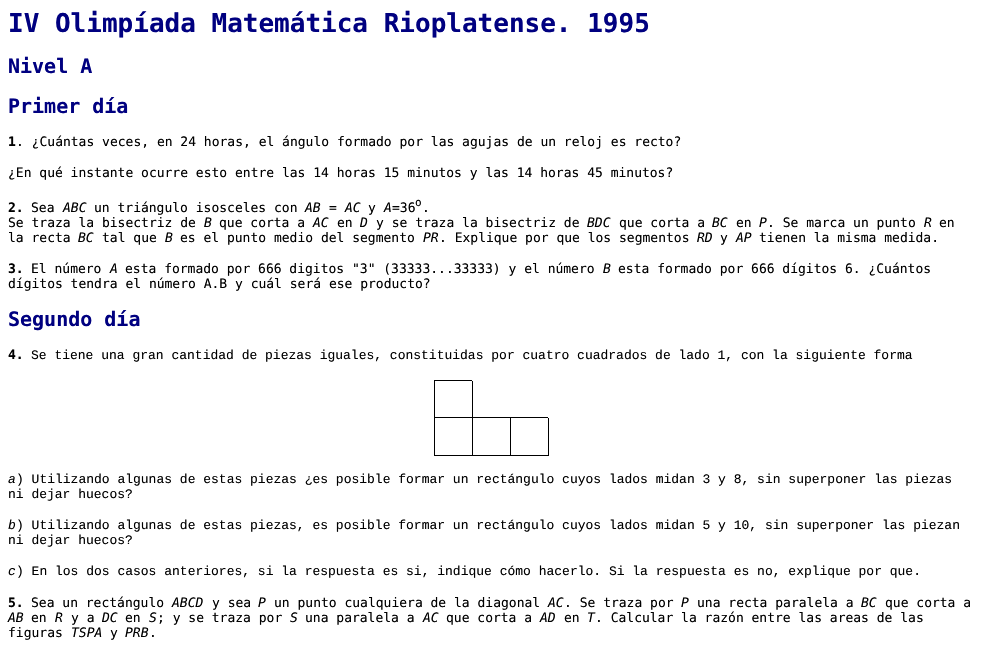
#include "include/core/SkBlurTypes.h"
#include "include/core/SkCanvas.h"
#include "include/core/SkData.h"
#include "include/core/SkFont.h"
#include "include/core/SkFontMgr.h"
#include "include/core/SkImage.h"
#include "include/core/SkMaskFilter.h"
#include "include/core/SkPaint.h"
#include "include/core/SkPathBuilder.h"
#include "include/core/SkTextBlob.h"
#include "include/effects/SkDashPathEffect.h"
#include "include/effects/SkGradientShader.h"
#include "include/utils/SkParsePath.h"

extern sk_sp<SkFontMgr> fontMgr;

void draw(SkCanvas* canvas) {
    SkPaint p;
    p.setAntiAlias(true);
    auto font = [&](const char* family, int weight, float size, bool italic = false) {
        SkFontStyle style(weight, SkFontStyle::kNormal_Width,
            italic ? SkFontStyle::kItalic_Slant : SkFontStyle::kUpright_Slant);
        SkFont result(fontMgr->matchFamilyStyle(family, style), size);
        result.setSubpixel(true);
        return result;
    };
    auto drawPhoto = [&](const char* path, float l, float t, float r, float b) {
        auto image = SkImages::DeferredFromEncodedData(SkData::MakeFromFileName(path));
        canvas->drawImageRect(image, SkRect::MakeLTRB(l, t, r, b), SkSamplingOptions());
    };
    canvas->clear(0xFFFFFFFF);
    auto font1 = font("DejaVu Sans Mono", 700, 26);
    p.setColor(0xFF000080);
    canvas->drawString("IV Olimpíada Matemática Rioplatense. 1995", 8, 32, font1, p);
    auto font2 = font("DejaVu Sans Mono", 700, 20);
    canvas->drawString("Nivel A", 8, 73, font2, p);
    canvas->drawString("Primer día", 8, 113, font2, p);
    auto font3 = font("DejaVu Sans Mono", 700, 13);
    p.setColor(0xFF000000);
    canvas->drawString("1", 8, 146, font3, p);
    auto font4 = font("DejaVu Sans Mono", 400, 13);
    canvas->drawString(". ¿Cuántas veces, en 24 horas, el ángulo formado por las agujas de un reloj es recto?", 16, 146, font4, p);
    canvas->drawString("¿En qué instante ocurre esto entre las 14 horas 15 minutos y las 14 horas 45 minutos?", 8, 177, font4, p);
    canvas->drawString("2.", 8, 212, font3, p);
    canvas->drawString("Sea", 31, 212, font4, p);
    auto font5 = font("DejaVu Sans Mono", 400, 13, true);
    canvas->drawString("ABC", 63, 212, font5, p);
    canvas->drawString("un triángulo isosceles con", 94, 212, font4, p);
    canvas->drawString("AB", 305, 212, font5, p);
    canvas->drawString("=", 329, 212, font4, p);
    canvas->drawString("AC", 345, 212, font5, p);
    canvas->drawString("y", 368, 212, font4, p);
    canvas->drawString("A", 384, 212, font5, p);
    canvas->drawString("=36", 392, 212, font4, p);
    auto font6 = font("DejaVu Sans Mono", 400, 11);
    canvas->drawString("o", 415, 206, font6, p);
    canvas->drawString(".", 422, 212, font4, p);
    canvas->drawString("Se traza la bisectriz de", 8, 227, font4, p);
    canvas->drawString("B", 204, 227, font5, p);
    canvas->drawString("que corta a", 219, 227, font4, p);
    canvas->drawString("AC", 313, 227, font5, p);
    canvas->drawString("en", 337, 227, font4, p);
    canvas->drawString("D", 360, 227, font5, p);
    canvas->drawString("y se traza la bisectriz de", 376, 227, font4, p);
    canvas->drawString("BDC", 587, 227, font5, p);
    canvas->drawString("que corta a", 619, 227, font4, p);
    canvas->drawString("BC", 712, 227, font5, p);
    canvas->drawString("en", 736, 227, font4, p);
    canvas->drawString("P", 759, 227, font5, p);
    canvas->drawString(". Se marca un punto", 767, 227, font4, p);
    canvas->drawString("R", 924, 227, font5, p);
    canvas->drawString("en", 939, 227, font4, p);
    canvas->drawString("la recta", 8, 242, font4, p);
    canvas->drawString("BC", 78, 242, font5, p);
    canvas->drawString("tal que", 102, 242, font4, p);
    canvas->drawString("B", 165, 242, font5, p);
    canvas->drawString("es el punto medio del segmento", 180, 242, font4, p);
    canvas->drawString("PR", 423, 242, font5, p);
    canvas->drawString(". Explique por que los segmentos", 439, 242, font4, p);
    canvas->drawString("RD", 697, 242, font5, p);
    canvas->drawString("y", 720, 242, font4, p);
    canvas->drawString("AP", 736, 242, font5, p);
    canvas->drawString("tienen la misma medida.", 759, 242, font4, p);
    canvas->drawString("3.", 8, 273, font3, p);
    canvas->drawString("El número", 31, 273, font4, p);
    canvas->drawString("A", 110, 273, font5, p);
    canvas->drawString("esta formado por 666 digitos \"3\" (33333...33333) y el número", 125, 273, font4, p);
    canvas->drawString("B", 603, 273, font5, p);
    canvas->drawString("esta formado por 666 dígitos 6. ¿Cuántos", 618, 273, font4, p);
    canvas->drawString("dígitos tendra el número A.B y cuál será ese producto?", 8, 288, font4, p);
    p.setColor(0xFF000080);
    canvas->drawString("Segundo día", 8, 326, font2, p);
    p.setColor(0xFF000000);
    canvas->drawString("4.", 8, 359, font3, p);
    auto font7 = font("Liberation Mono", 400, 13);
    canvas->drawString("Se tiene una gran cantidad de piezas iguales, constituidas por cuatro cuadrados de lado 1, con la siguiente forma", 31, 359, font7, p);
    drawPhoto("media/1.png", 434, 380, 549, 456);
    auto font8 = font("Liberation Mono", 400, 13, true);
    canvas->drawString("a", 8, 483, font8, p);
    canvas->drawString(") Utilizando algunas de estas piezas ¿es posible formar un rectángulo cuyos lados midan 3 y 8, sin superponer las piezas", 16, 483, font7, p);
    canvas->drawString("ni dejar huecos?", 8, 498, font7, p);
    canvas->drawString("b", 8, 529, font8, p);
    canvas->drawString(") Utilizando algunas de estas piezas, es posible formar un rectángulo cuyos lados midan 5 y 10, sin superponer las piezan", 16, 529, font7, p);
    canvas->drawString("ni dejar huecos?", 8, 544, font7, p);
    canvas->drawString("c", 8, 575, font8, p);
    canvas->drawString(") En los dos casos anteriores, si la respuesta es si, indique cómo hacerlo. Si la respuesta es no, explique por que.", 16, 575, font7, p);
    canvas->drawString("5.", 8, 607, font3, p);
    canvas->drawString("Sea un rectángulo", 31, 607, font4, p);
    canvas->drawString("ABCD", 172, 607, font5, p);
    canvas->drawString("y sea", 212, 607, font4, p);
    canvas->drawString("P", 258, 607, font5, p);
    canvas->drawString("un punto cualquiera de la diagonal", 274, 607, font4, p);
    canvas->drawString("AC", 548, 607, font5, p);
    canvas->drawString(". Se traza por", 564, 607, font4, p);
    canvas->drawString("P", 681, 607, font5, p);
    canvas->drawString("una recta paralela a", 697, 607, font4, p);
    canvas->drawString("BC", 861, 607, font5, p);
    canvas->drawString("que corta a", 885, 607, font4, p);
    canvas->drawString("AB", 8, 622, font5, p);
    canvas->drawString("en", 31, 622, font4, p);
    canvas->drawString("R", 55, 622, font5, p);
    canvas->drawString("y a", 71, 622, font4, p);
    canvas->drawString("DC", 102, 622, font5, p);
    canvas->drawString("en", 125, 622, font4, p);
    canvas->drawString("S", 149, 622, font5, p);
    canvas->drawString("; y se traza por", 157, 622, font4, p);
    canvas->drawString("S", 290, 622, font5, p);
    canvas->drawString("una paralela a", 305, 622, font4, p);
    canvas->drawString("AC", 423, 622, font5, p);
    canvas->drawString("que corta a", 446, 622, font4, p);
    canvas->drawString("AD", 540, 622, font5, p);
    canvas->drawString("en", 564, 622, font4, p);
    canvas->drawString("T", 587, 622, font5, p);
    canvas->drawString(". Calcular la razón entre las areas de las", 595, 622, font4, p);
    canvas->drawString("figuras", 8, 637, font4, p);
    canvas->drawString("TSPA", 71, 637, font5, p);
    canvas->drawString("y", 110, 637, font4, p);
    canvas->drawString("PRB", 125, 637, font5, p);
    canvas->drawString(".", 149, 637, font4, p);
}
